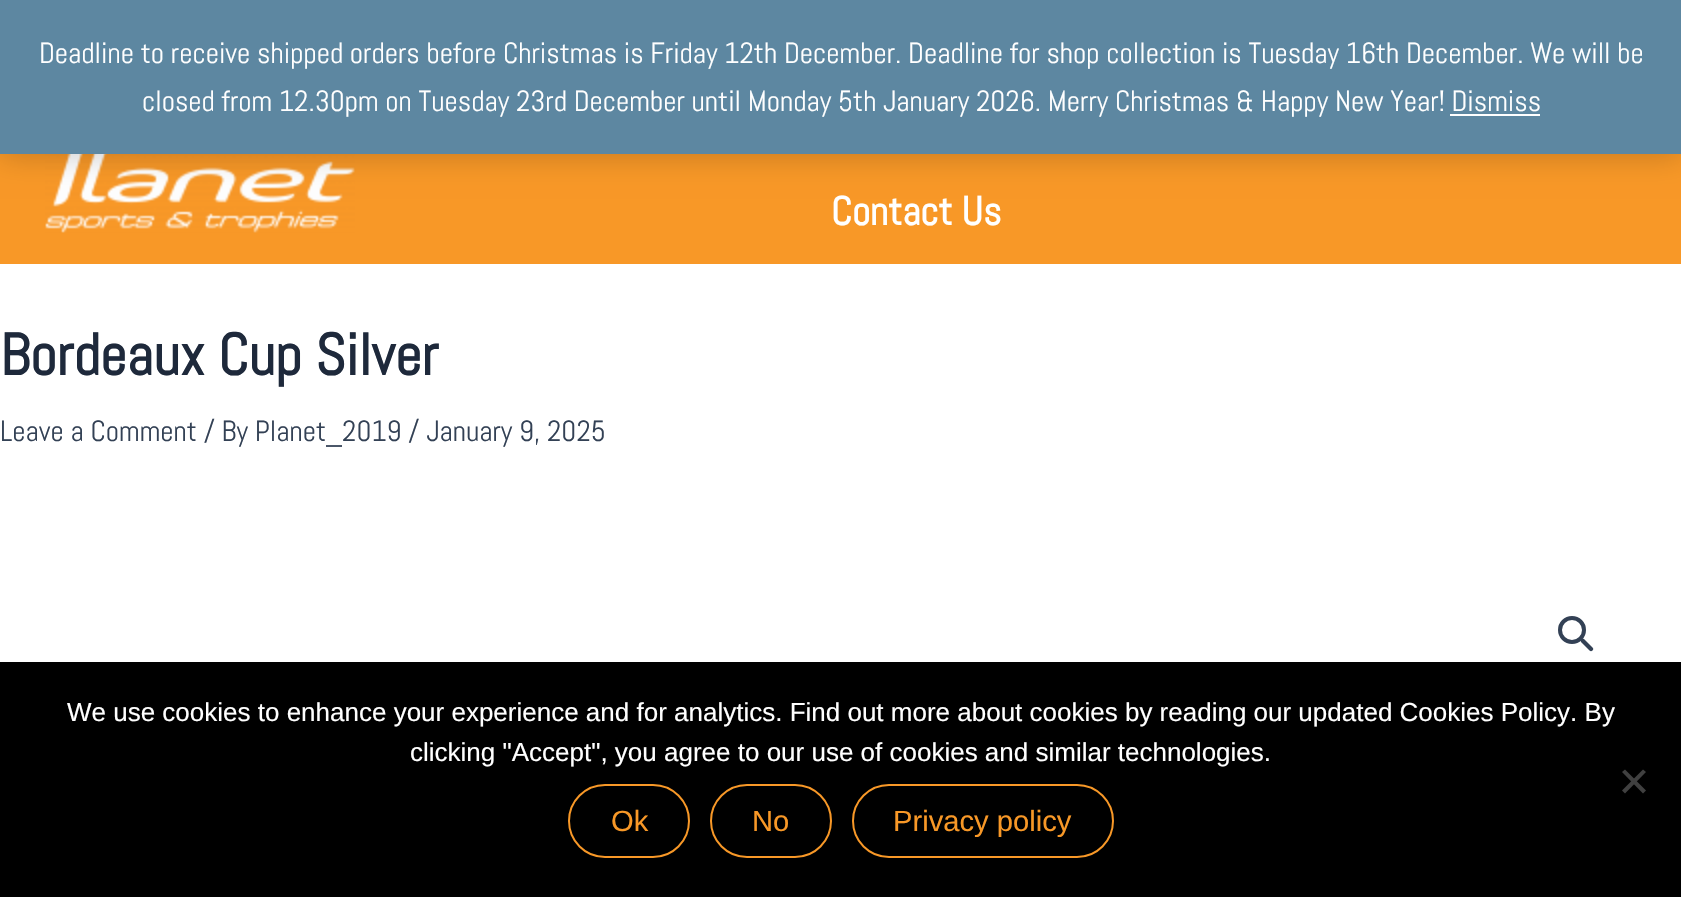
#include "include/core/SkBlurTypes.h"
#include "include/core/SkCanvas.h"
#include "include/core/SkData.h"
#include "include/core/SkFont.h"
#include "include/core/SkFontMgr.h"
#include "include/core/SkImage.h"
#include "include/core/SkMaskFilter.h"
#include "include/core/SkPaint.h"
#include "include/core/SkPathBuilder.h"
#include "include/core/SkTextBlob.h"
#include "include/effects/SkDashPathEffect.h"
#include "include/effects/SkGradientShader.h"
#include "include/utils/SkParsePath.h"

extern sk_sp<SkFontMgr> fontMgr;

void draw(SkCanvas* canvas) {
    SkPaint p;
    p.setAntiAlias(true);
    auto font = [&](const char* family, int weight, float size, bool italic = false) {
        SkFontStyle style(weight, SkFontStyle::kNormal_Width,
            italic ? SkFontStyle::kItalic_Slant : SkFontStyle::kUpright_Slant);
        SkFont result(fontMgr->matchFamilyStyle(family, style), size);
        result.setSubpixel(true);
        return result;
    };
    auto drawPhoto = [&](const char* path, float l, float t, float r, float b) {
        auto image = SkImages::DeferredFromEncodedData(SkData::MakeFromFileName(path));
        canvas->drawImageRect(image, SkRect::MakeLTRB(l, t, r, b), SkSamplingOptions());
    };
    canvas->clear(0xFFFFFFFF);
    p.setColor(0xFFF89827);
    canvas->drawRect(SkRect::MakeLTRB(0, 154, 1681, 264), p);
    drawPhoto("media/1.png", 45, 154, 355, 233);
    p.setColor(0x33000000);
    p.setMaskFilter(SkMaskFilter::MakeBlur(kNormal_SkBlurStyle, 14.5f));
    canvas->drawRect(SkRect::MakeLTRB(0, 2, 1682, 156), p);
    p.setMaskFilter(nullptr);
    p.setColor(0xFF5D87A1);
    canvas->drawRect(SkRect::MakeLTRB(0, 0, 1681, 154), p);
    auto font1 = font("Abel", 400, 29.18f);
    p.setColor(0xFFFFFFFF);
    canvas->drawString("Deadline to receive shipped orders before Christmas is Friday 12th December. Deadline for shop collection is Tuesday 16th December. We will be", 39, 63, font1, p);
    canvas->drawString("closed from 12.30pm on Tuesday 23rd December until Monday 5th January 2026. Merry Christmas & Happy New Year! Dismiss", 142, 111, font1, p);
    canvas->drawRect(SkRect::MakeLTRB(1450, 114, 1540, 116), p);
    auto font2 = font("Abel", 700, 40);
    canvas->drawString("Contact Us", 831, 225, font2, p);
    auto font3 = font("Abel", 700, 58.5f);
    p.setColor(0xFF1E293B);
    canvas->drawString("Bordeaux Cup Silver", 0, 375, font3, p);
    p.setColor(0xFF334155);
    canvas->drawString("Leave a Comment / By Planet_2019 / January 9, 2025", 0, 441, font1, p);
    p.setStyle(SkPaint::kStroke_Style);
    p.setStrokeWidth(4);
    canvas->drawCircle(1572, 630, 12, p);
    p.setStyle(SkPaint::kFill_Style);
    canvas->drawPath(SkPathBuilder().moveTo(1581, 639).cubicTo(1582, 638.5f, 1583, 638.5f, 1584, 639).lineTo(1592.5f, 647.5f).cubicTo(1593.5f, 648.5f, 1593.5f, 649.5f, 1592.5f, 650.5f).cubicTo(1591.5f, 651.5f, 1590.5f, 651.5f, 1589.5f, 650.5f).lineTo(1581, 642).cubicTo(1580.5f, 641, 1580.5f, 640, 1581, 639).close().detach(), p);
    p.setColor(0xFF000000);
    canvas->drawRect(SkRect::MakeLTRB(0, 662, 1681, 897), p);
    auto font4 = font("Liberation Sans", 400, 26);
    p.setColor(0xFFFFFFFF);
    canvas->drawString("We use cookies to enhance your experience and for analytics. Find out more about cookies by reading our updated Cookies Policy. By", 67, 721, font4, p);
    canvas->drawString("clicking \"Accept\", you agree to our use of cookies and similar technologies.", 410, 761, font4, p);
    p.setColor(0xFF404040);
    canvas->drawPath(SkPathBuilder().moveTo(1643, 769.5f).lineTo(1646, 772).lineTo(1625, 793.5f).lineTo(1622, 790.5f).close().detach(), p);
    canvas->drawPath(SkPathBuilder().moveTo(1622, 772).lineTo(1625, 769.5f).lineTo(1646, 790.5f).lineTo(1643, 793.5f).close().detach(), p);
    p.setStyle(SkPaint::kStroke_Style);
    p.setStrokeWidth(2);
    p.setColor(0xFFF89827);
    canvas->drawRoundRect(SkRect::MakeLTRB(569, 785, 689, 857), 36, 36, p);
    auto font5 = font("Liberation Sans", 400, 29.18f);
    p.setStyle(SkPaint::kFill_Style);
    canvas->drawString("Ok", 611, 831, font5, p);
    p.setStyle(SkPaint::kStroke_Style);
    canvas->drawRoundRect(SkRect::MakeLTRB(711, 785, 831, 857), 36, 36, p);
    p.setStyle(SkPaint::kFill_Style);
    canvas->drawString("No", 752, 831, font5, p);
    p.setStyle(SkPaint::kStroke_Style);
    canvas->drawRoundRect(SkRect::MakeLTRB(853, 785, 1113, 857), 36, 36, p);
    p.setStyle(SkPaint::kFill_Style);
    canvas->drawString("Privacy policy", 893, 831, font5, p);
}
